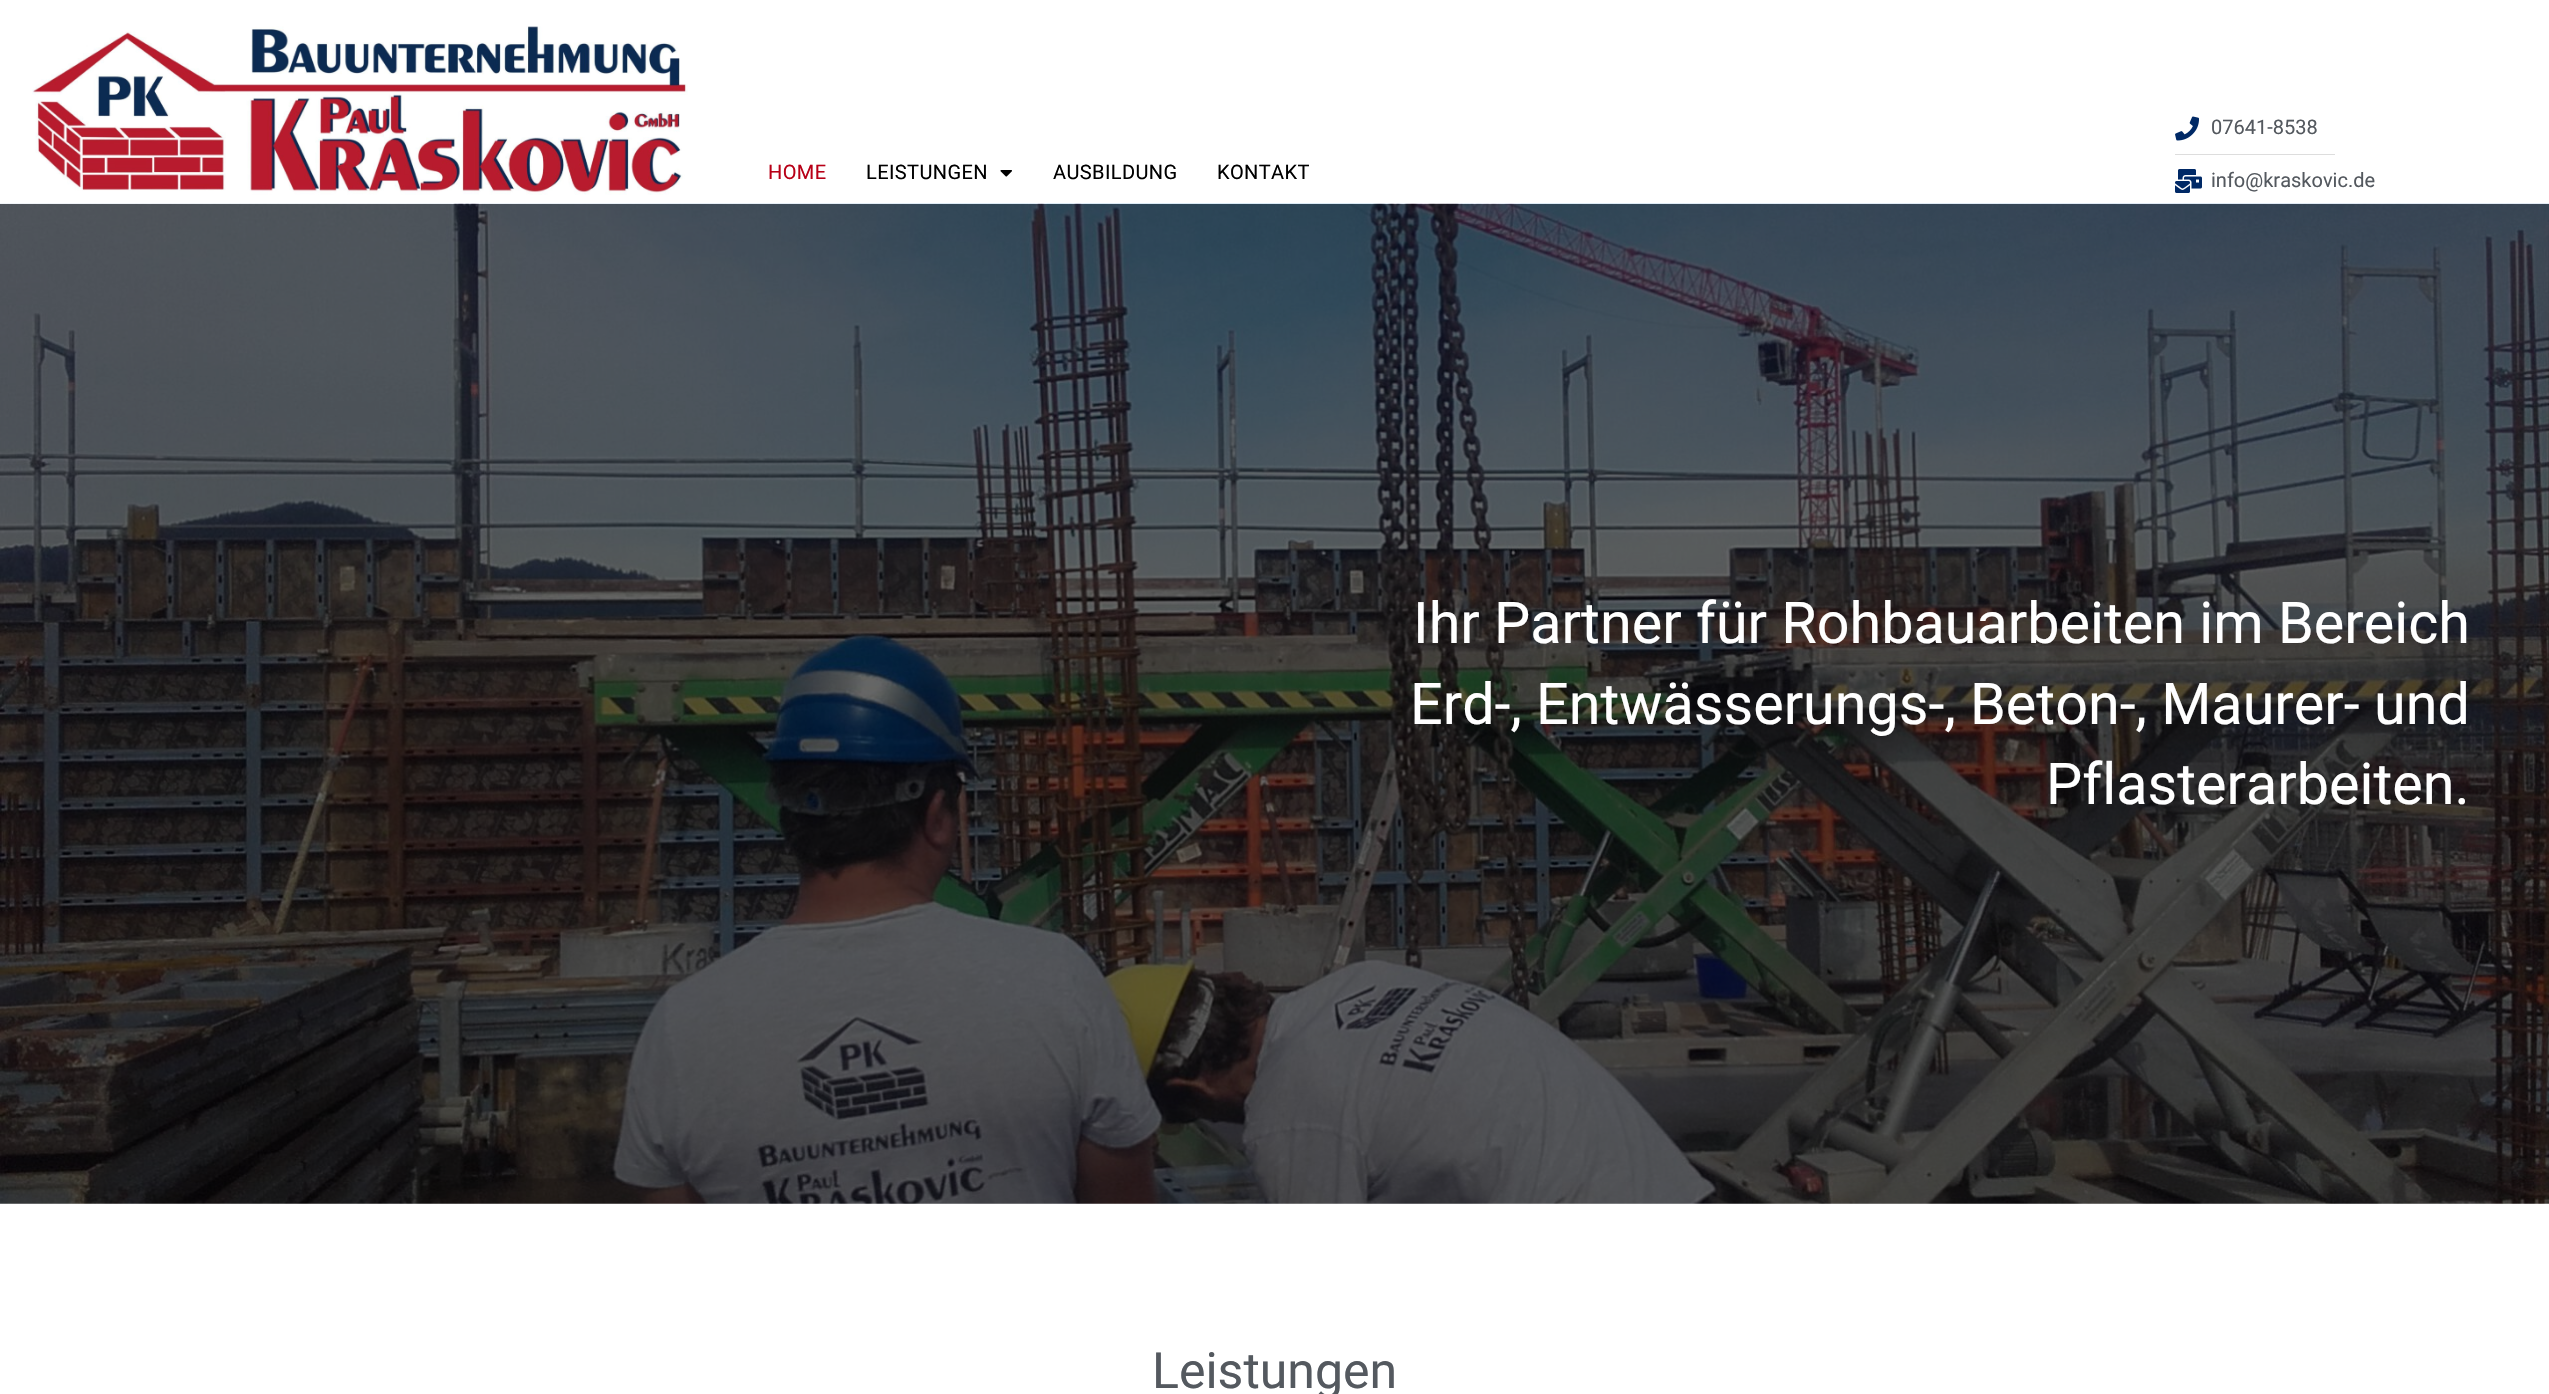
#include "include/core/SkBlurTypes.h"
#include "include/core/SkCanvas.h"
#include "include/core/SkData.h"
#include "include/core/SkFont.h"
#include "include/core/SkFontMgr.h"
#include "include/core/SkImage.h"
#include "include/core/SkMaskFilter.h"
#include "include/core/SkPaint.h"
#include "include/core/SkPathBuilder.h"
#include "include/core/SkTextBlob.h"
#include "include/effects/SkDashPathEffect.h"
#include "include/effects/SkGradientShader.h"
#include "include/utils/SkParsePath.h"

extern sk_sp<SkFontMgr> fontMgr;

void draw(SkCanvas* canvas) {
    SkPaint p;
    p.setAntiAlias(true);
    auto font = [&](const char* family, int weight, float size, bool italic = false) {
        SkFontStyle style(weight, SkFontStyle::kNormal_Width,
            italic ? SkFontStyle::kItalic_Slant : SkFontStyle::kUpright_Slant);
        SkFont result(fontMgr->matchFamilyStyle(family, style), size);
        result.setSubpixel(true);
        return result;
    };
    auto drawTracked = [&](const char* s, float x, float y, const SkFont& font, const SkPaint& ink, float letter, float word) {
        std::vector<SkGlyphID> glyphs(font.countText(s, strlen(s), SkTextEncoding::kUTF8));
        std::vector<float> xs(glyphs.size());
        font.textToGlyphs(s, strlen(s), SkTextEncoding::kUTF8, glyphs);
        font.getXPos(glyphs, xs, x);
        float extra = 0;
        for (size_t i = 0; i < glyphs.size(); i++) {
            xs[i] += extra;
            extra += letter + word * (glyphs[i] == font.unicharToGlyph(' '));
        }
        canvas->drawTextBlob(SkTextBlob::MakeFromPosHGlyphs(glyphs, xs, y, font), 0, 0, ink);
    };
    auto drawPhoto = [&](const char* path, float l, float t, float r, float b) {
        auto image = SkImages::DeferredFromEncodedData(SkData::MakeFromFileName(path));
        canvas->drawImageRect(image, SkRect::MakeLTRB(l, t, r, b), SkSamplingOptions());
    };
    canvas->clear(0xFFFFFFFF);
    drawPhoto("media/1.png", 32, 26, 688, 195);
    auto font1 = font("Roboto", 400, 20);
    p.setColor(0xFFB80017);
    drawTracked("HOME", 768, 179, font1, p, 0.4f, 0);
    p.setColor(0xFF000000);
    drawTracked("LEISTUNGEN", 866, 179, font1, p, 0.4f, 0);
    drawPhoto("media/2.png", 1000, 170, 1012, 177);
    drawTracked("AUSBILDUNG", 1053, 179, font1, p, 0.4f, 0);
    drawTracked("KONTAKT", 1217, 179, font1, p, 0.4f, 0);
    drawPhoto("media/3.png", 2175, 116, 2199, 141);
    p.setColor(0xFF54595F);
    canvas->drawString("07641-8538", 2211, 134, font1, p);
    p.setColor(0xFFDDDDDD);
    canvas->drawRect(SkRect::MakeLTRB(2175, 154, 2335, 155), p);
    drawPhoto("media/4.png", 2175, 169, 2202, 193);
    p.setColor(0xFF54595F);
    canvas->drawString("info@kraskovic.de", 2211, 187, font1, p);
    drawPhoto("media/5.png", 0, 203, 2549, 1204);
    auto font2 = font("Roboto", 400, 57.5f);
    p.setColor(0xFFFFFFFF);
    {
        const struct { const char* s; float x, y; } items[] = {
            {"Ihr Partner für Rohbauarbeiten im Bereich", 1413, 643},
            {"Erd-, Entwässerungs-, Beton-, Maurer- und", 1410, 724},
            {"Pflasterarbeiten.", 2046, 804},
        };
        for (auto [s, x, y] : items) {
            canvas->drawString(s, x, y, font2, p);
        }
    }
    auto font3 = font("Roboto", 400, 50);
    p.setColor(0xFF54595F);
    canvas->drawString("Leistungen", 1152, 1388, font3, p);
}
